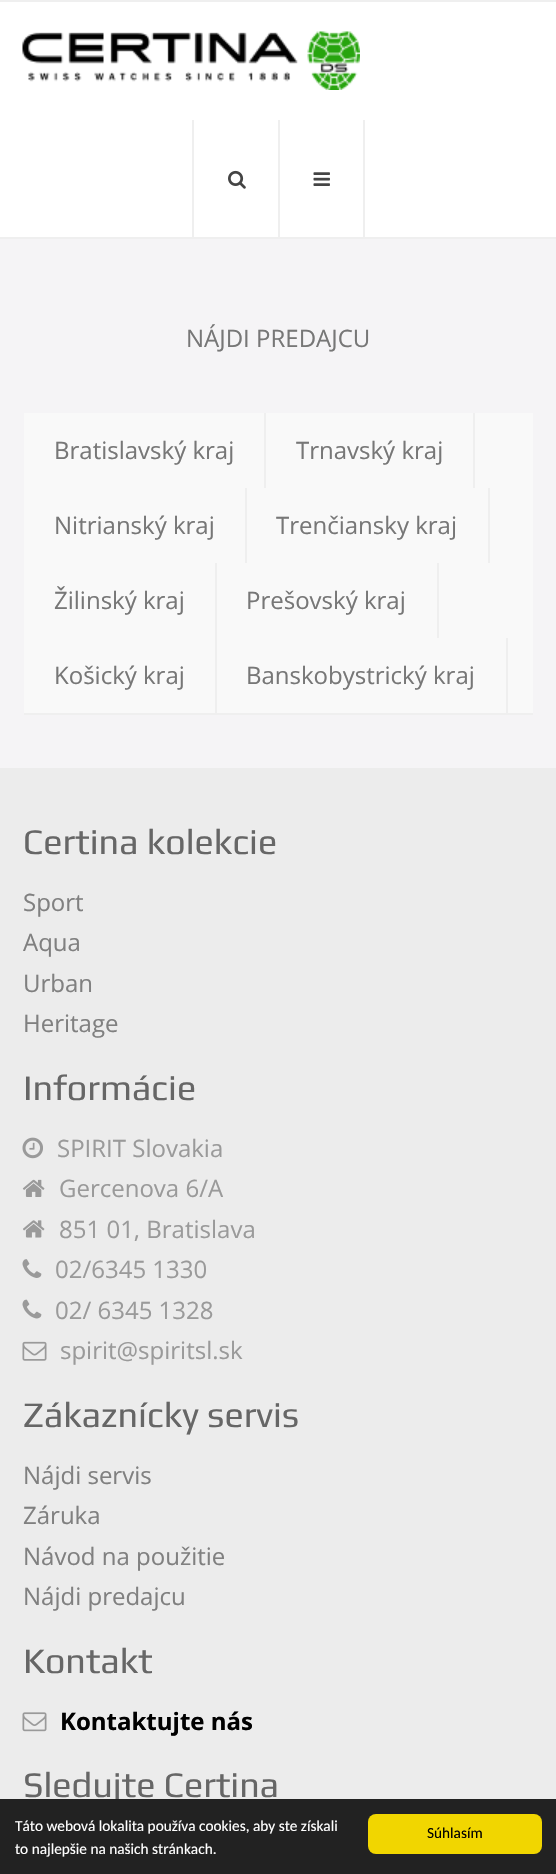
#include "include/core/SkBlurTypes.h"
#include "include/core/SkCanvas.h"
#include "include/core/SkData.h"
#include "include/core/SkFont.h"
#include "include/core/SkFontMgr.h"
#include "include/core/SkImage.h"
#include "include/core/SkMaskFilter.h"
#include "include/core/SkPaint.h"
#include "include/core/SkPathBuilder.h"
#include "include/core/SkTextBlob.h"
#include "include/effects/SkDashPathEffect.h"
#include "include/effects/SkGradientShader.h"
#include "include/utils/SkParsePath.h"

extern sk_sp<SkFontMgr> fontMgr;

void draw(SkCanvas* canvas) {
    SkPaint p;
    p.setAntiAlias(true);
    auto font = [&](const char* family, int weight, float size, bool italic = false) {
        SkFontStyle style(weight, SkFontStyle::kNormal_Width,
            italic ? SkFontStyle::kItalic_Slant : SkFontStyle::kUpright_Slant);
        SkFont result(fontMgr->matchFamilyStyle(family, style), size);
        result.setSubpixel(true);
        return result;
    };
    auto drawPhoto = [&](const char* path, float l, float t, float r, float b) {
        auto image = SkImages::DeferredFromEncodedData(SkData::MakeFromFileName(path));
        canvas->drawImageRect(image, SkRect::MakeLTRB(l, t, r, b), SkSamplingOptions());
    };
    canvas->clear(0xFFF5F4F6);
    {
        const struct { float l, t, r, b; SkColor color; } items[] = {
            {0, 2, 556, 237, 0xFFFFFFFF},
            {0, 0, 556, 2, 0xFFEFEFEF},
            {0, 237, 556, 239, 0xFFEFEFEF},
        };
        for (auto [l, t, r, b, color] : items) {
            p.setColor(color);
            canvas->drawRect(SkRect::MakeLTRB(l, t, r, b), p);
        }
    }
    drawPhoto("media/1.png", 22, 31, 360, 90);
    canvas->drawRect(SkRect::MakeLTRB(278, 120, 280, 237), p);
    canvas->drawRect(SkRect::MakeLTRB(192, 120, 194, 237), p);
    drawPhoto("media/2.png", 228, 170, 246, 189);
    canvas->drawRect(SkRect::MakeLTRB(363, 120, 365, 237), p);
    drawPhoto("media/3.png", 313, 172, 330, 186);
    auto font1 = font("Open Sans", 400, 24);
    p.setColor(0xFF777777);
    canvas->drawString("NÁJDI PREDAJCU", 186, 347, font1, p);
    {
        const struct { float l, t, r, b; SkColor color; } items[] = {
            {24, 413, 533, 713, 0xFFF9F9F9},
            {24, 713, 533, 715, 0xFFEFEFEF},
            {264, 413, 266, 488, 0xFFEFEFEF},
        };
        for (auto [l, t, r, b, color] : items) {
            p.setColor(color);
            canvas->drawRect(SkRect::MakeLTRB(l, t, r, b), p);
        }
    }
    p.setColor(0xFF777777);
    canvas->drawString("Bratislavský kraj", 54, 459, font1, p);
    p.setColor(0xFFEFEFEF);
    canvas->drawRect(SkRect::MakeLTRB(473, 413, 475, 488), p);
    p.setColor(0xFF777777);
    canvas->drawString("Trnavský kraj", 296, 459, font1, p);
    p.setColor(0xFFEFEFEF);
    canvas->drawRect(SkRect::MakeLTRB(245, 488, 247, 563), p);
    p.setColor(0xFF777777);
    canvas->drawString("Nitrianský kraj", 54, 534, font1, p);
    p.setColor(0xFFEFEFEF);
    canvas->drawRect(SkRect::MakeLTRB(488, 488, 490, 563), p);
    p.setColor(0xFF777777);
    canvas->drawString("Trenčiansky kraj", 276, 534, font1, p);
    p.setColor(0xFFEFEFEF);
    canvas->drawRect(SkRect::MakeLTRB(215, 563, 217, 713), p);
    p.setColor(0xFF777777);
    canvas->drawString("Žilinský kraj", 54, 609, font1, p);
    p.setColor(0xFFEFEFEF);
    canvas->drawRect(SkRect::MakeLTRB(437, 563, 439, 638), p);
    p.setColor(0xFF777777);
    canvas->drawString("Prešovský kraj", 246, 609, font1, p);
    canvas->drawString("Košický kraj", 54, 684, font1, p);
    p.setColor(0xFFEFEFEF);
    canvas->drawRect(SkRect::MakeLTRB(506, 638, 508, 713), p);
    p.setColor(0xFF777777);
    canvas->drawString("Banskobystrický kraj", 246, 684, font1, p);
    p.setColor(0xFFECECEC);
    canvas->drawRect(SkRect::MakeLTRB(0, 768, 556, 1799), p);
    auto font2 = font("Play", 400, 36);
    p.setColor(0xFF666666);
    canvas->drawString("Certina kolekcie", 23, 854, font2, p);
    p.setColor(0xFF808080);
    {
        const struct { const char* s; float x, y; } items[] = {
            {"Sport", 23, 911},
            {"Aqua", 23, 951},
            {"Urban", 23, 992},
            {"Heritage", 23, 1032},
        };
        for (auto [s, x, y] : items) {
            canvas->drawString(s, x, y, font1, p);
        }
    }
    p.setColor(0xFF666666);
    canvas->drawString("Informácie", 23, 1100, font2, p);
    drawPhoto("media/4.png", 22, 1137, 43, 1159);
    p.setColor(0xFF9A9A9A);
    canvas->drawString("SPIRIT Slovakia", 57, 1157, font1, p);
    drawPhoto("media/5.png", 22, 1179, 45, 1197);
    canvas->drawString("Gercenova 6/A", 59, 1197, font1, p);
    drawPhoto("media/6.png", 23, 1220, 45, 1238);
    canvas->drawString("851 01, Bratislava", 59, 1238, font1, p);
    drawPhoto("media/7.png", 22, 1259, 42, 1278);
    canvas->drawString("02/6345 1330", 55, 1278, font1, p);
    drawPhoto("media/8.png", 22, 1299, 42, 1319);
    canvas->drawString("02/ 6345 1328", 55, 1319, font1, p);
    drawPhoto("media/9.png", 22, 1341, 47, 1361);
    canvas->drawString("spirit@spiritsl.sk", 60, 1359, font1, p);
    p.setColor(0xFF666666);
    canvas->drawString("Zákaznícky servis", 23, 1427, font2, p);
    p.setColor(0xFF808080);
    {
        const struct { const char* s; float x, y; } items[] = {
            {"Nájdi servis", 23, 1484},
            {"Záruka", 23, 1524},
            {"Návod na použitie", 23, 1565},
            {"Nájdi predajcu", 23, 1605},
        };
        for (auto [s, x, y] : items) {
            canvas->drawString(s, x, y, font1, p);
        }
    }
    p.setColor(0xFF666666);
    canvas->drawString("Kontakt", 23, 1673, font2, p);
    drawPhoto("media/10.png", 22, 1712, 47, 1732);
    auto font3 = font("Open Sans", 700, 24);
    p.setColor(0xFF000000);
    canvas->drawString("Kontaktujte nás", 60, 1730, font3, p);
    p.setColor(0xFF666666);
    canvas->drawString("Sledujte Certina", 23, 1797, font2, p);
    p.setColor(0xFF222222);
    canvas->drawRect(SkRect::MakeLTRB(0, 1799, 556, 1874), p);
    auto font4 = font("Carlito", 400, 15.3f);
    p.setColor(0xFFFFFFFF);
    canvas->drawString("Táto webová lokalita používa cookies, aby ste získali", 15, 1831, font4, p);
    canvas->drawString("to najlepšie na našich stránkach.", 15, 1854, font4, p);
    p.setColor(0xFFF1D600);
    canvas->drawRoundRect(SkRect::MakeLTRB(368, 1814, 542, 1854), 8, 8, p);
    p.setColor(0xFF000000);
    canvas->drawString("Súhlasím", 427, 1838, font4, p);
}
